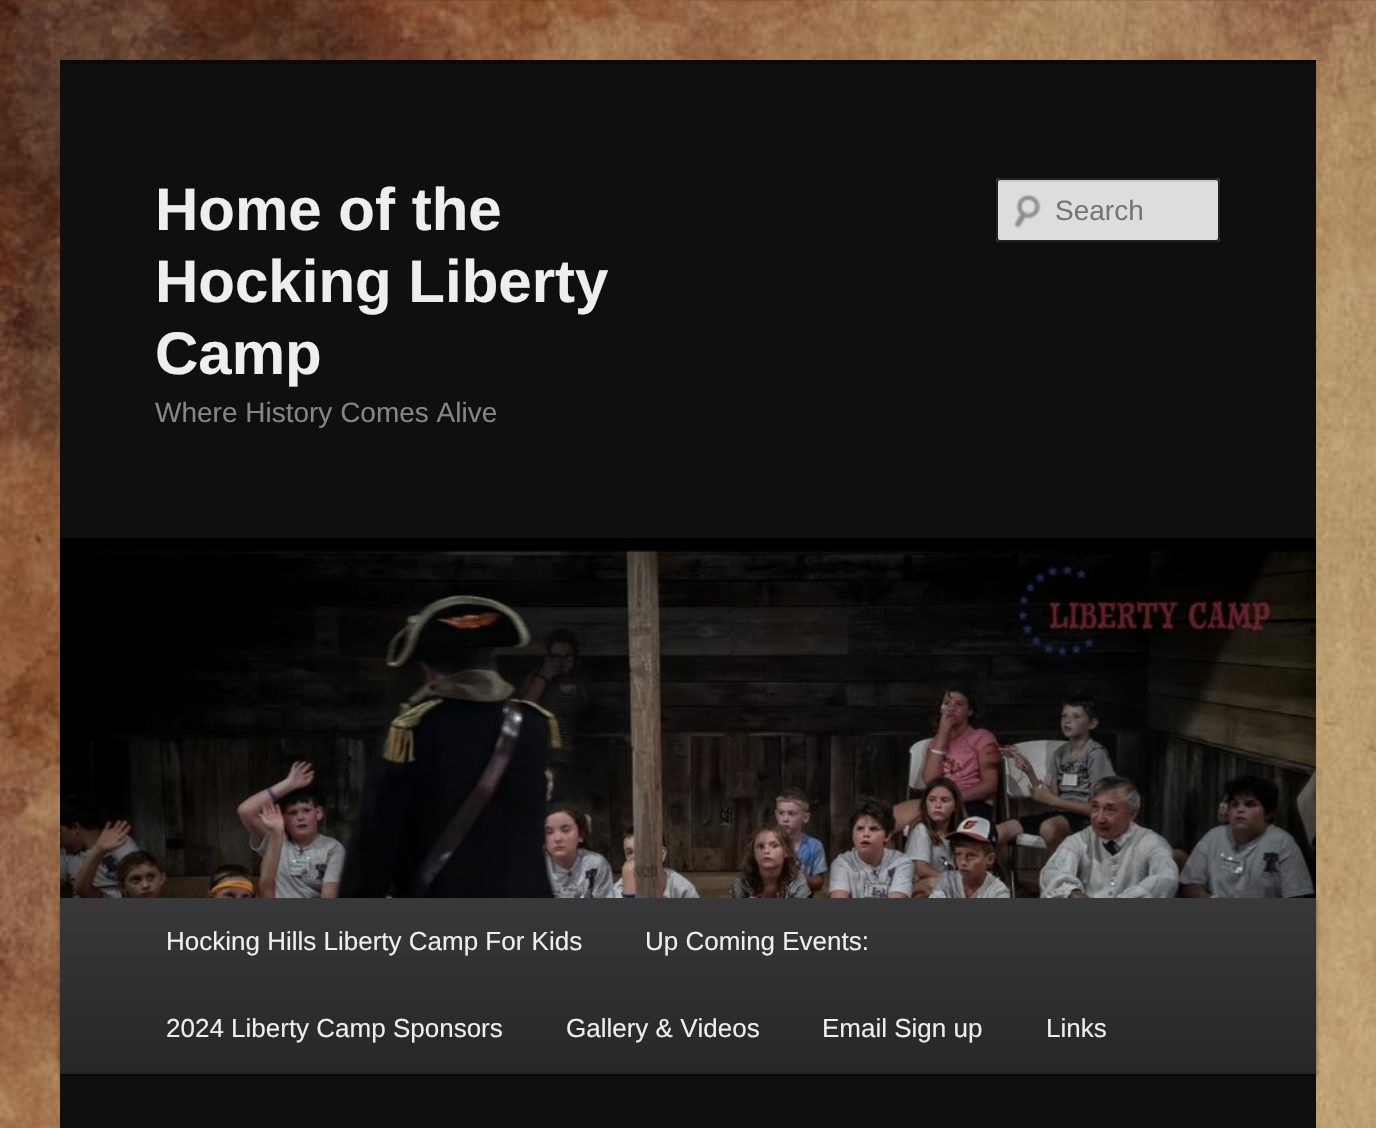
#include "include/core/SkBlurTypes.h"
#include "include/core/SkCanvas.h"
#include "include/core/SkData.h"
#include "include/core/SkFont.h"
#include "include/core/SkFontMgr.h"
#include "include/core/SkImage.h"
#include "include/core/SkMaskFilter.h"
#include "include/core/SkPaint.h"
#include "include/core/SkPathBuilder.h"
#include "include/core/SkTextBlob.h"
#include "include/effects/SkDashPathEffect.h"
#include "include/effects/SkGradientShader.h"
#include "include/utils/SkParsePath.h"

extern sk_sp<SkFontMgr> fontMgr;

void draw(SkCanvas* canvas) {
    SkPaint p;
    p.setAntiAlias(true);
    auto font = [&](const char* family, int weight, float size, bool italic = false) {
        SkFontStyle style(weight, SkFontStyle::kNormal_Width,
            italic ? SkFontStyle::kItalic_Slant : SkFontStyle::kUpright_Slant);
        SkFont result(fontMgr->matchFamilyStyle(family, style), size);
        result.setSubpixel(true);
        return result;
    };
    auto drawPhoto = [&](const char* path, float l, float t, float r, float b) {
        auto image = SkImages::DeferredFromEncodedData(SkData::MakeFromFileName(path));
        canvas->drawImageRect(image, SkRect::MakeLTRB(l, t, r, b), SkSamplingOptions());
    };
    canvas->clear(0xFFFFFFFF);
    drawPhoto("media/1.png", 0, 0, 1376, 1128);
    p.setColor(0xFF0F0F0F);
    canvas->drawRect(SkRect::MakeLTRB(60, 64, 1316, 1128), p);
    p.setColor(0xFF0A0A0A);
    canvas->drawRect(SkRect::MakeLTRB(60, 60, 1316, 64), p);
    auto font1 = font("Liberation Sans", 700, 60);
    p.setColor(0xFFEEEEEE);
    {
        const struct { const char* s; float x, y; } items[] = {
            {"Home of the", 155, 230},
            {"Hocking Liberty", 155, 302},
            {"Camp", 155, 374},
        };
        for (auto [s, x, y] : items) {
            canvas->drawString(s, x, y, font1, p);
        }
    }
    auto font2 = font("Liberation Sans", 400, 28);
    p.setColor(0xFF858585);
    canvas->drawString("Where History Comes Alive", 155, 422, font2, p);
    p.setColor(0xFFDDDDDD);
    canvas->drawRoundRect(SkRect::MakeLTRB(996, 178, 1220, 242), 4, 4, p);
    drawPhoto("media/2.png", 1013, 194, 1041, 229);
    p.setColor(0xFFC7C7C7);
    canvas->drawPath(SkPathBuilder().moveTo(1000, 182).lineTo(1216, 182).cubicTo(1217, 182, 1218, 183, 1218, 184).lineTo(1218, 182).cubicTo(1218, 181, 1217, 180, 1216, 180).lineTo(1000, 180).cubicTo(999, 180, 998, 181, 998, 182).lineTo(998, 184).cubicTo(998, 183, 999, 182, 1000, 182).close().detach(), p);
    p.setStyle(SkPaint::kStroke_Style);
    p.setStrokeWidth(2);
    p.setColor(0xFF222222);
    canvas->drawRoundRect(SkRect::MakeLTRB(997, 179, 1219, 241), 3, 3, p);
    p.setStyle(SkPaint::kFill_Style);
    p.setColor(0xFF757575);
    canvas->drawString("Search", 1055, 220, font2, p);
    p.setColor(0x66000000);
    p.setMaskFilter(SkMaskFilter::MakeBlur(kNormal_SkBlurStyle, 2));
    canvas->drawRect(SkRect::MakeLTRB(60, 900, 1316, 1076), p);
    p.setMaskFilter(nullptr);
    drawPhoto("media/3.png", 60, 538, 1316, 898);
    {
        const SkColor colors[] = {0xFF383838, 0xFF272727};
        const float stops[] = {0, 1};
        const SkPoint ends[] = {{688, 898}, {688, 1072}};
        p.setShader(SkGradientShader::MakeLinear(ends, colors, stops, 2, SkTileMode::kClamp));
        p.setAlpha(255);
    }
    canvas->drawRect(SkRect::MakeLTRB(60, 898, 1316, 1072), p);
    p.setShader(nullptr);
    p.setColor(0xFF222222);
    canvas->drawRect(SkRect::MakeLTRB(60, 1072, 1316, 1074), p);
    auto font3 = font("Liberation Sans", 400, 26);
    p.setColor(0xFFEEEEEE);
    {
        const struct { const char* s; float x, y; } items[] = {
            {"Hocking Hills Liberty Camp For Kids", 166, 950},
            {"Up Coming Events:", 645, 950},
            {"2024 Liberty Camp Sponsors", 166, 1037},
            {"Gallery & Videos", 566, 1037},
            {"Email Sign up", 822, 1037},
            {"Links", 1046, 1037},
        };
        for (auto [s, x, y] : items) {
            canvas->drawString(s, x, y, font3, p);
        }
    }
}
